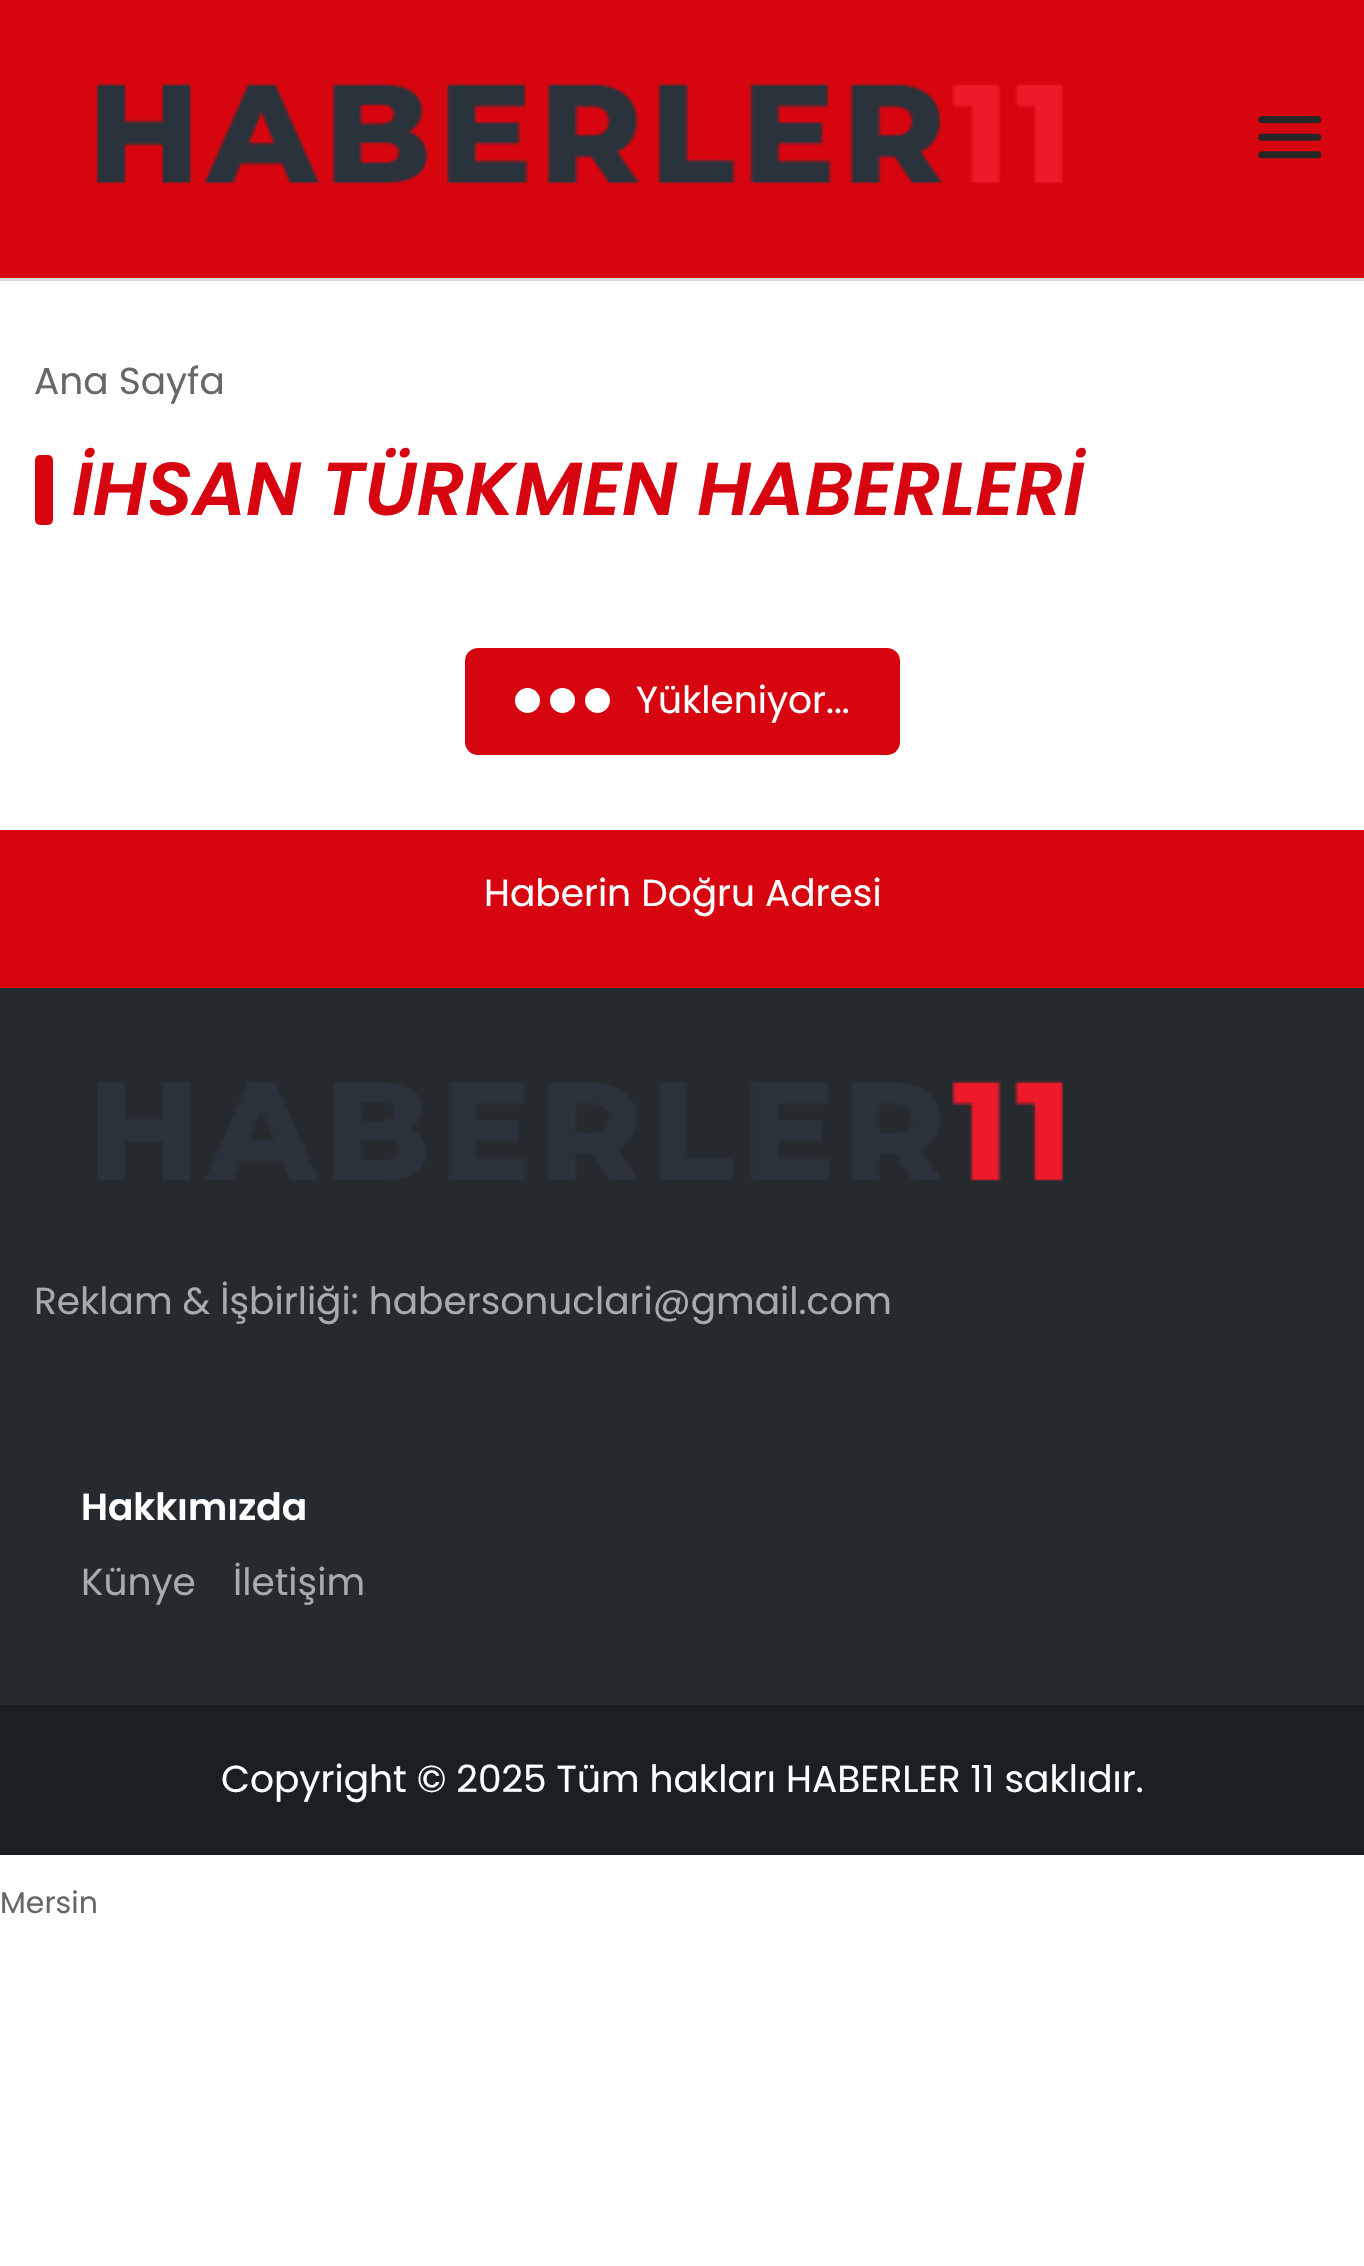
#include "include/core/SkBlurTypes.h"
#include "include/core/SkCanvas.h"
#include "include/core/SkData.h"
#include "include/core/SkFont.h"
#include "include/core/SkFontMgr.h"
#include "include/core/SkImage.h"
#include "include/core/SkMaskFilter.h"
#include "include/core/SkPaint.h"
#include "include/core/SkPathBuilder.h"
#include "include/core/SkTextBlob.h"
#include "include/effects/SkDashPathEffect.h"
#include "include/effects/SkGradientShader.h"
#include "include/utils/SkParsePath.h"

extern sk_sp<SkFontMgr> fontMgr;

void draw(SkCanvas* canvas) {
    SkPaint p;
    p.setAntiAlias(true);
    auto font = [&](const char* family, int weight, float size, bool italic = false) {
        SkFontStyle style(weight, SkFontStyle::kNormal_Width,
            italic ? SkFontStyle::kItalic_Slant : SkFontStyle::kUpright_Slant);
        SkFont result(fontMgr->matchFamilyStyle(family, style), size);
        result.setSubpixel(true);
        return result;
    };
    auto drawPhoto = [&](const char* path, float l, float t, float r, float b) {
        auto image = SkImages::DeferredFromEncodedData(SkData::MakeFromFileName(path));
        canvas->drawImageRect(image, SkRect::MakeLTRB(l, t, r, b), SkSamplingOptions());
    };
    canvas->clear(0xFFFFFFFF);
    p.setColor(0xFFD7050F);
    canvas->drawRect(SkRect::MakeLTRB(0, 0, 1364, 278), p);
    drawPhoto("media/1.png", 94, 82, 1063, 184);
    drawPhoto("media/2.png", 1258, 116, 1322, 159);
    p.setColor(0xFFD9D9D9);
    canvas->drawRect(SkRect::MakeLTRB(0, 278, 1364, 281), p);
    auto font1 = font("Poppins", 400, 37.5f);
    p.setColor(0xFF676767);
    canvas->drawString("Ana Sayfa", 34, 394, font1, p);
    p.setColor(0xFFD7050F);
    canvas->drawRoundRect(SkRect::MakeLTRB(35, 455, 53, 525), 5, 5, p);
    auto font2 = font("Poppins", 600, 75, true);
    canvas->drawString("İHSAN TÜRKMEN HABERLERİ", 72, 515, font2, p);
    canvas->drawRoundRect(SkRect::MakeLTRB(465, 648, 900, 755), 13, 13, p);
    p.setColor(0xFFFFFFFF);
    canvas->drawCircle(527.5f, 700.5f, 12.5f, p);
    canvas->drawCircle(562.5f, 700.5f, 12.5f, p);
    canvas->drawCircle(597.5f, 700.5f, 12.5f, p);
    canvas->drawString("Yükleniyor...", 636, 713, font1, p);
    p.setColor(0xFFD7050F);
    canvas->drawRect(SkRect::MakeLTRB(0, 830, 1364, 988), p);
    p.setColor(0xFFFFFFFF);
    canvas->drawString("Haberin Doğru Adresi", 484, 906, font1, p);
    p.setColor(0xFF252A2E);
    canvas->drawRect(SkRect::MakeLTRB(0, 988, 1364, 1705), p);
    drawPhoto("media/3.png", 97, 1080, 1064, 1181);
    p.setColor(0xFFA8AAAB);
    canvas->drawString("Reklam & İşbirliği: habersonuclari@gmail.com", 34, 1314, font1, p);
    auto font3 = font("Poppins", 600, 37.5f);
    p.setColor(0xFFFFFFFF);
    canvas->drawString("Hakkımızda", 81, 1520, font3, p);
    p.setColor(0xFFA8AAAB);
    canvas->drawString("Künye", 81, 1595, font1, p);
    canvas->drawString("İletişim", 233, 1595, font1, p);
    p.setColor(0xFF1A1F23);
    canvas->drawRect(SkRect::MakeLTRB(0, 1705, 1364, 1855), p);
    p.setColor(0xFFFFFFFF);
    canvas->drawString("Copyright © 2025 Tüm hakları HABERLER 11 saklıdır.", 221, 1792, font1, p);
    auto font4 = font("Poppins", 400, 30);
    p.setColor(0xFF676767);
    canvas->drawString("Mersin", 0, 1913, font4, p);
}
